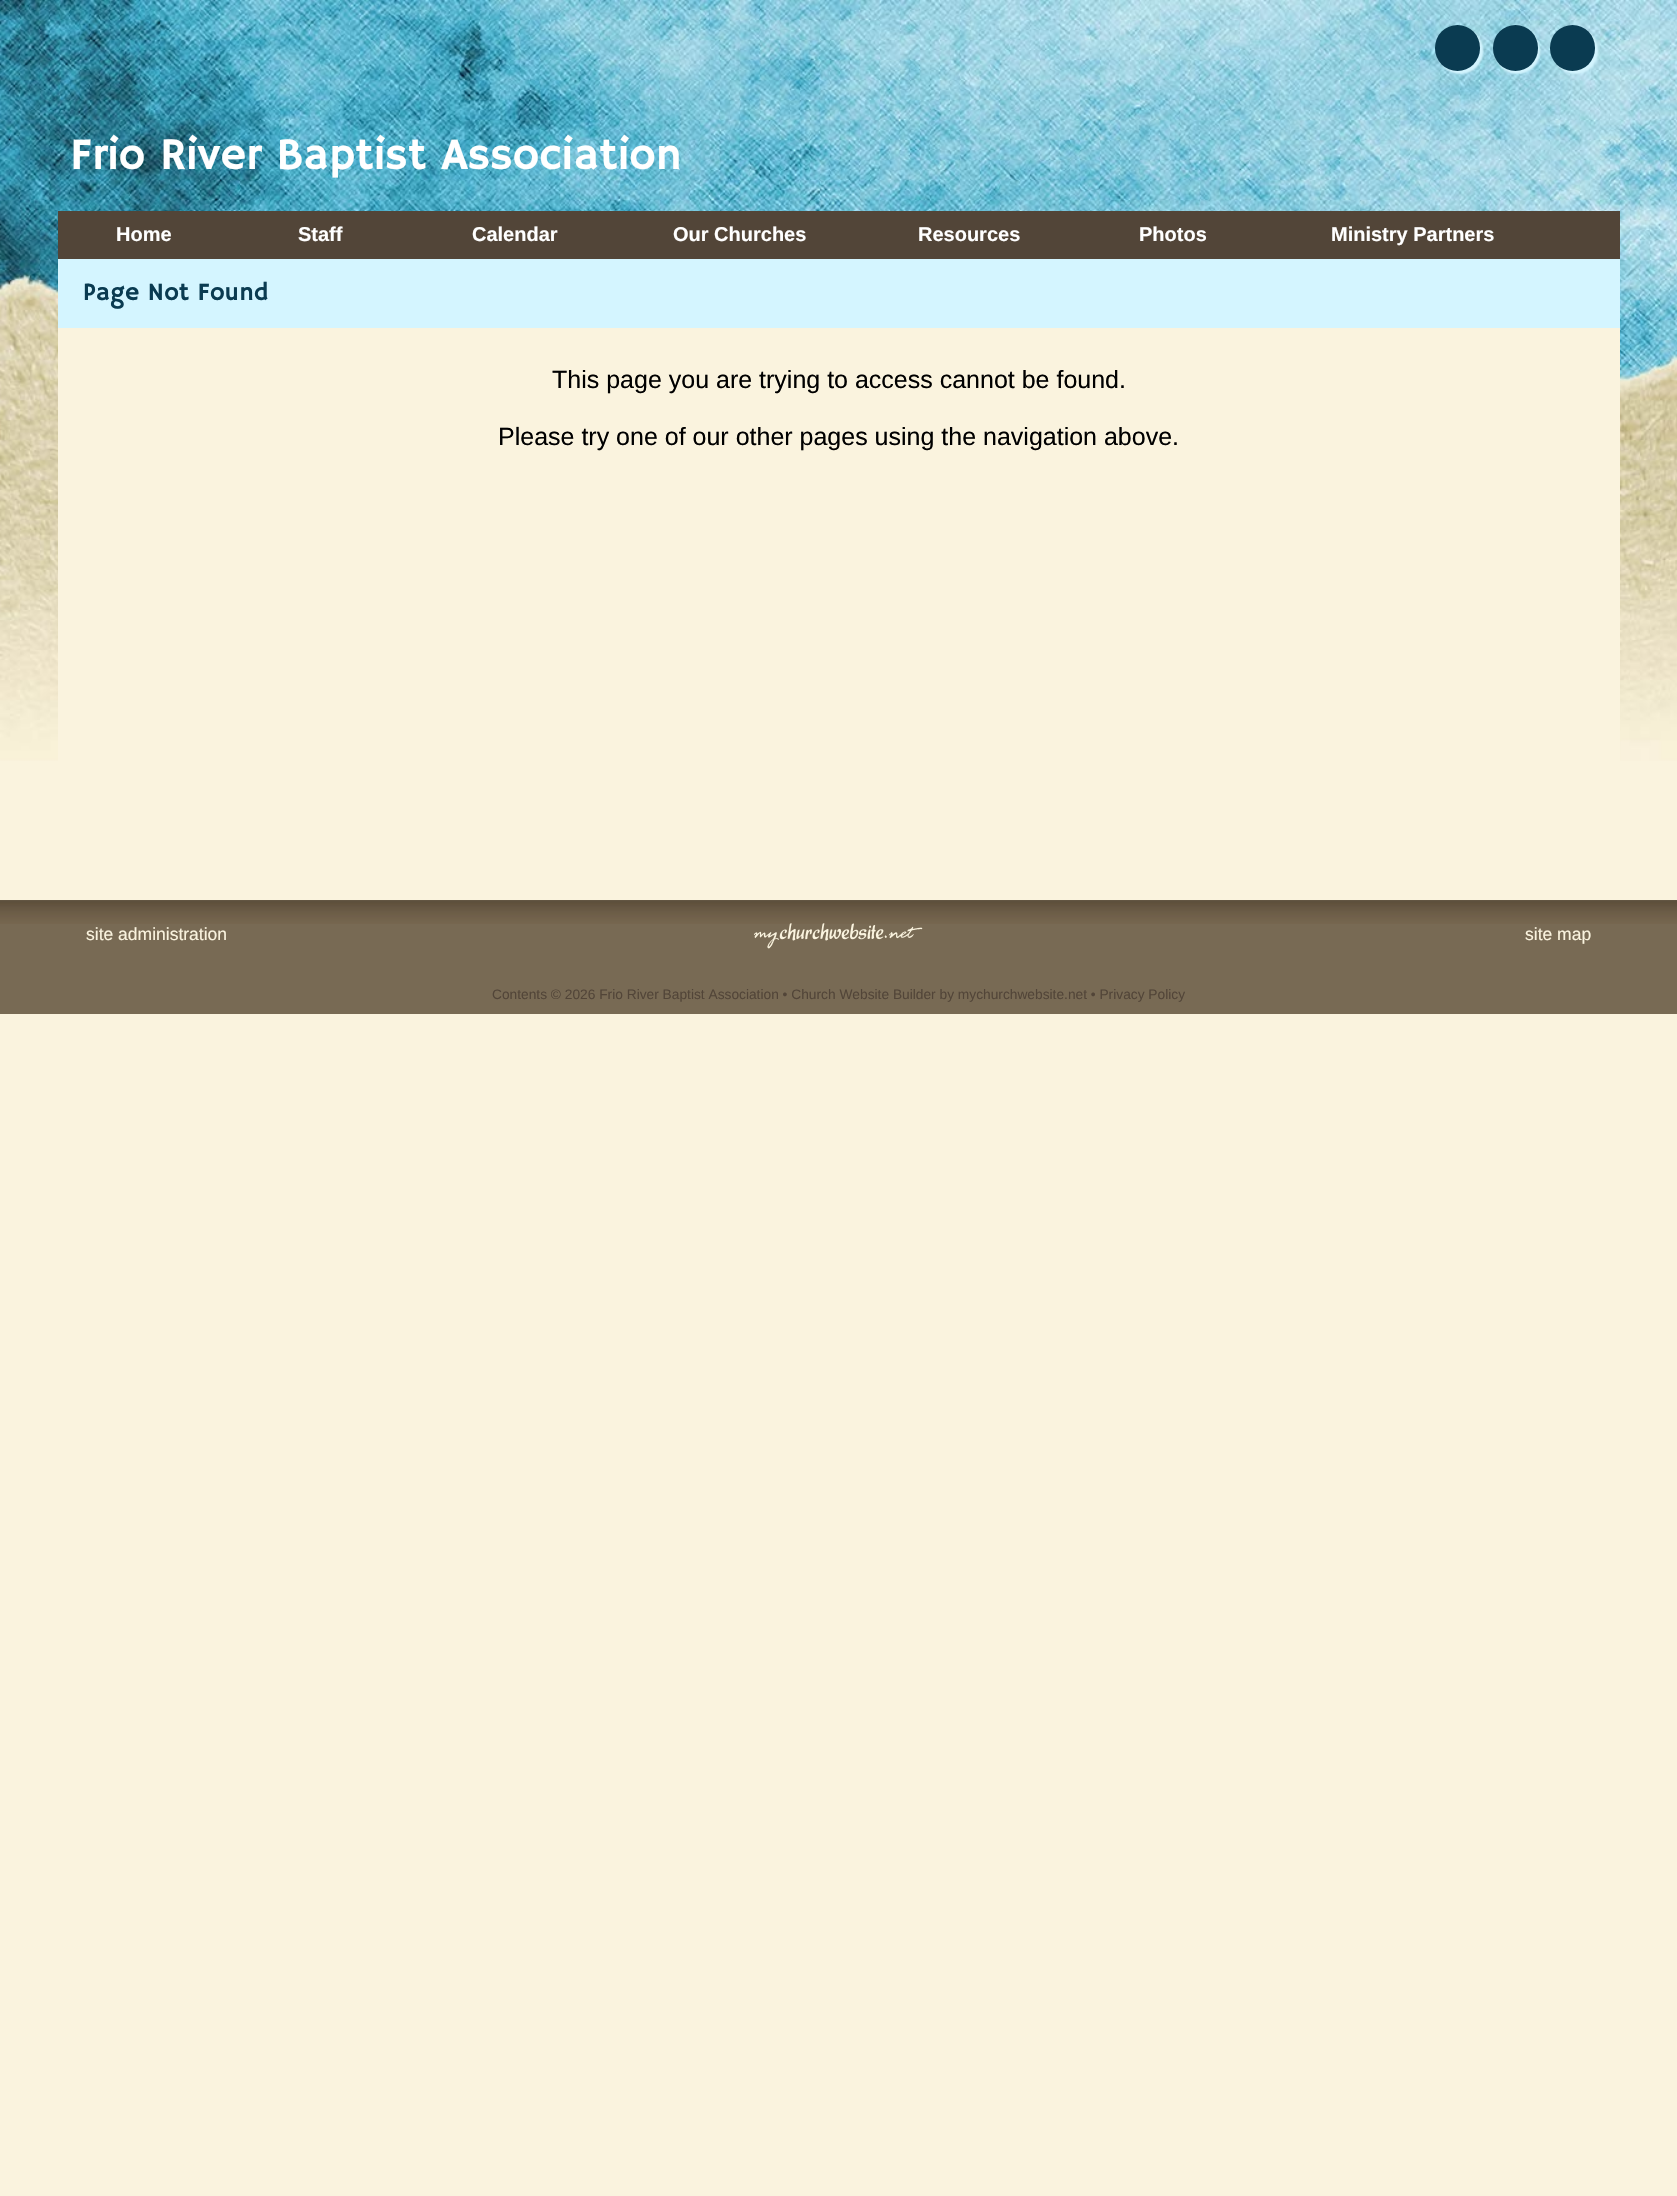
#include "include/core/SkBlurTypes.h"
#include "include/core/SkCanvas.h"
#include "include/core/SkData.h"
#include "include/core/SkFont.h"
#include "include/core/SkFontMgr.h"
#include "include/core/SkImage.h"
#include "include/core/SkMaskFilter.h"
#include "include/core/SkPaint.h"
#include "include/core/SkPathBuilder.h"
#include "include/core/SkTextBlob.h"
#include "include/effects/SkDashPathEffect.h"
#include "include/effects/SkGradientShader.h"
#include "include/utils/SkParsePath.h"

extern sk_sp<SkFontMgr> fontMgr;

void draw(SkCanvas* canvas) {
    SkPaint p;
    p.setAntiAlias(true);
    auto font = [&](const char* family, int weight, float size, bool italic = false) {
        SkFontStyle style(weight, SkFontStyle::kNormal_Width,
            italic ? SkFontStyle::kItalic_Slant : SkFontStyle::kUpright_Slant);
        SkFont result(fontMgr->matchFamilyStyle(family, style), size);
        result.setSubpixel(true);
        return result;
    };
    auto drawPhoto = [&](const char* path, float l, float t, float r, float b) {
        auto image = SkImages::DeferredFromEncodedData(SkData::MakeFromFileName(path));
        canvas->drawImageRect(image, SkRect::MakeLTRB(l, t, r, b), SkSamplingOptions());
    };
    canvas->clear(0xFFFAF3DE);
    drawPhoto("media/1.png", 0, 0, 1677, 761);
    p.setColor(0xFFD4F5FF);
    p.setMaskFilter(SkMaskFilter::MakeBlur(kNormal_SkBlurStyle, 1));
    canvas->drawRoundRect(SkRect::MakeLTRB(1438, 28, 1483, 74), 22.5f, 22.5f, p);
    p.setMaskFilter(nullptr);
    p.setColor(0xFF0A3B51);
    canvas->drawRoundRect(SkRect::MakeLTRB(1435, 25, 1480, 71), 22.5f, 22.5f, p);
    p.setColor(0xFFD4F5FF);
    p.setMaskFilter(SkMaskFilter::MakeBlur(kNormal_SkBlurStyle, 1));
    canvas->drawRoundRect(SkRect::MakeLTRB(1495, 28, 1540, 74), 22.5f, 22.5f, p);
    p.setMaskFilter(nullptr);
    p.setColor(0xFF0A3B51);
    canvas->drawRoundRect(SkRect::MakeLTRB(1493, 25, 1538, 71), 22.5f, 22.5f, p);
    p.setColor(0xFFD4F5FF);
    p.setMaskFilter(SkMaskFilter::MakeBlur(kNormal_SkBlurStyle, 1));
    canvas->drawRoundRect(SkRect::MakeLTRB(1553, 28, 1598, 74), 22.5f, 22.5f, p);
    p.setMaskFilter(nullptr);
    p.setColor(0xFF0A3B51);
    canvas->drawRoundRect(SkRect::MakeLTRB(1550, 25, 1595, 71), 22.5f, 22.5f, p);
    auto font1 = font("Hammersmith One", 400, 45);
    p.setColor(0xFFFFFFFF);
    canvas->drawString("Frio River Baptist Association", 70, 169, font1, p);
    p.setColor(0xFF524538);
    canvas->drawRect(SkRect::MakeLTRB(58, 211, 1620, 259), p);
    auto font2 = font("Arimo", 700, 20);
    p.setColor(0xFFFFFFFF);
    {
        const struct { const char* s; float x, y; } items[] = {
            {"Home", 116, 241},
            {"Staff", 298, 241},
            {"Calendar", 472, 241},
            {"Our Churches", 673, 241},
            {"Resources", 918, 241},
            {"Photos", 1139, 241},
            {"Ministry Partners", 1331, 241},
        };
        for (auto [s, x, y] : items) {
            canvas->drawString(s, x, y, font2, p);
        }
    }
    p.setColor(0xFFFAF3DE);
    canvas->drawRect(SkRect::MakeLTRB(58, 328, 1620, 761), p);
    p.setColor(0xFFD4F5FF);
    canvas->drawRect(SkRect::MakeLTRB(58, 259, 1620, 328), p);
    auto font3 = font("Hammersmith One", 400, 25);
    p.setColor(0xFF0A3B51);
    canvas->drawString("Page Not Found", 83, 300, font3, p);
    auto font4 = font("Liberation Sans", 400, 25);
    p.setColor(0xFF000000);
    canvas->drawString("This page you are trying to access cannot be found.", 552, 388, font4, p);
    canvas->drawString("Please try one of our other pages using the navigation above.", 498, 445, font4, p);
    p.setColor(0xFF786A54);
    canvas->drawRect(SkRect::MakeLTRB(0, 924, 1677, 1014), p);
    drawPhoto("media/2.png", 0, 900, 1677, 924);
    canvas->drawPath(SkPathBuilder().moveTo(58, 900).lineTo(1620, 900).lineTo(1620, 968).cubicTo(1620, 971.5f, 1617.5f, 974, 1614, 974).lineTo(64, 974).cubicTo(60.5f, 974, 58, 971.5f, 58, 968).close().detach(), p);
    drawPhoto("media/3.png", 58, 900, 1620, 924);
    auto font5 = font("Arimo", 400, 17.5f);
    p.setColor(0xFFFAF3DE);
    canvas->drawString("site administration", 86, 940, font5, p);
    drawPhoto("media/4.png", 754, 923, 923, 949);
    canvas->drawString("site map", 1525, 940, font5, p);
    auto font6 = font("Arimo", 400, 13.75f);
    p.setColor(0xFF524538);
    canvas->drawString("Contents © 2026 Frio River Baptist Association • Church Website Builder by mychurchwebsite.net • Privacy Policy", 492, 999, font6, p);
}
